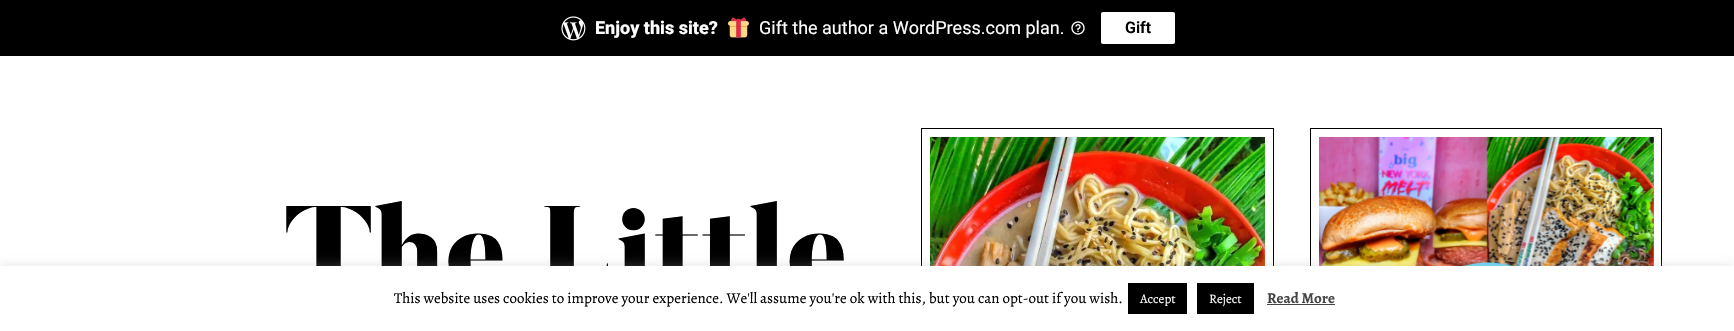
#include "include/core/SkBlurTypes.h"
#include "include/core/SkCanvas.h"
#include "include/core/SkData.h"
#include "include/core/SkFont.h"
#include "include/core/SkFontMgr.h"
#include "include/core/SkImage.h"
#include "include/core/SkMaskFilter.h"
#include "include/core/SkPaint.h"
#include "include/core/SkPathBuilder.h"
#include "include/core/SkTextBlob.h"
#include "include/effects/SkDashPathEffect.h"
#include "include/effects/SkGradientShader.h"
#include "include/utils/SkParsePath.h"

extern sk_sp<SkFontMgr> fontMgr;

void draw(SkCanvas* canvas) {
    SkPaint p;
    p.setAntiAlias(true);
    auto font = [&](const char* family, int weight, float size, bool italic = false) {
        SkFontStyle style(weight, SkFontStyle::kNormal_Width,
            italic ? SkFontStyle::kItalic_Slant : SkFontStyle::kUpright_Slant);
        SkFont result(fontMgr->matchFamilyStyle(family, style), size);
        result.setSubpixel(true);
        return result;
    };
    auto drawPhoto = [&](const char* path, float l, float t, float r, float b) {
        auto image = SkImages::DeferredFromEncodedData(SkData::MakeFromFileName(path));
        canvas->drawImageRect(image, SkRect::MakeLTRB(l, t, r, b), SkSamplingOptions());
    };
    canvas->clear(0xFFFFFFFF);
    p.setColor(0xFF000000);
    canvas->drawRect(SkRect::MakeLTRB(0, 0, 1734, 56), p);
    drawPhoto("media/1.png", 561, 16, 586, 41);
    auto font1 = font("Roboto", 800, 18);
    p.setColor(0xFFFFFFFF);
    canvas->drawString("Enjoy this site?", 595, 34, font1, p);
    drawPhoto("media/2.png", 728, 17, 749, 38);
    auto font2 = font("Roboto", 400, 18);
    canvas->drawString("Gift the author a WordPress.com plan.", 759, 34, font2, p);
    drawPhoto("media/3.png", 1071, 21, 1085, 35);
    canvas->drawRoundRect(SkRect::MakeLTRB(1101, 12, 1175, 44), 2, 2, p);
    auto font3 = font("Roboto", 600, 16);
    p.setColor(0xFF000000);
    canvas->drawString("Gift", 1125, 33, font3, p);
    auto font4 = font("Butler", 900, 118);
    canvas->drawString("The Little", 284, 289, font4, p);
    p.setStyle(SkPaint::kStroke_Style);
    p.setStrokeWidth(1);
    canvas->drawRect(SkRect::MakeLTRB(921.5f, 128.5f, 1273.5f, 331.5f), p);
    drawPhoto("media/4.png", 930, 137, 1265, 266);
    canvas->drawRect(SkRect::MakeLTRB(1310.5f, 128.5f, 1661.5f, 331.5f), p);
    drawPhoto("media/5.png", 1319, 137, 1654, 266);
    p.setStyle(SkPaint::kFill_Style);
    p.setColor(0x4DACABAB);
    p.setMaskFilter(SkMaskFilter::MakeBlur(kNormal_SkBlurStyle, 5));
    canvas->drawRect(SkRect::MakeLTRB(0, 265, 1734, 330), p);
    p.setMaskFilter(nullptr);
    p.setColor(0xFFFFFFFF);
    canvas->drawRect(SkRect::MakeLTRB(0, 266, 1734, 331), p);
    auto font5 = font("Alegreya", 400, 15);
    p.setColor(0xFF000000);
    canvas->drawString("This website uses cookies to improve your experience. We'll assume you're ok with this, but you can opt-out if you wish.", 394, 303, font5, p);
    canvas->drawRect(SkRect::MakeLTRB(1128, 283, 1187, 314), p);
    auto font6 = font("Alegreya", 400, 13);
    p.setColor(0xFFFFFFFF);
    canvas->drawString("Accept", 1140, 303, font6, p);
    p.setColor(0xFF000000);
    canvas->drawRect(SkRect::MakeLTRB(1197, 283, 1254, 314), p);
    p.setColor(0xFFFFFFFF);
    canvas->drawString("Reject", 1209, 303, font6, p);
    auto font7 = font("Alegreya", 700, 15);
    p.setColor(0xFF444444);
    canvas->drawString("Read More", 1267, 303, font7, p);
    canvas->drawRect(SkRect::MakeLTRB(1267, 304, 1335, 305), p);
}
